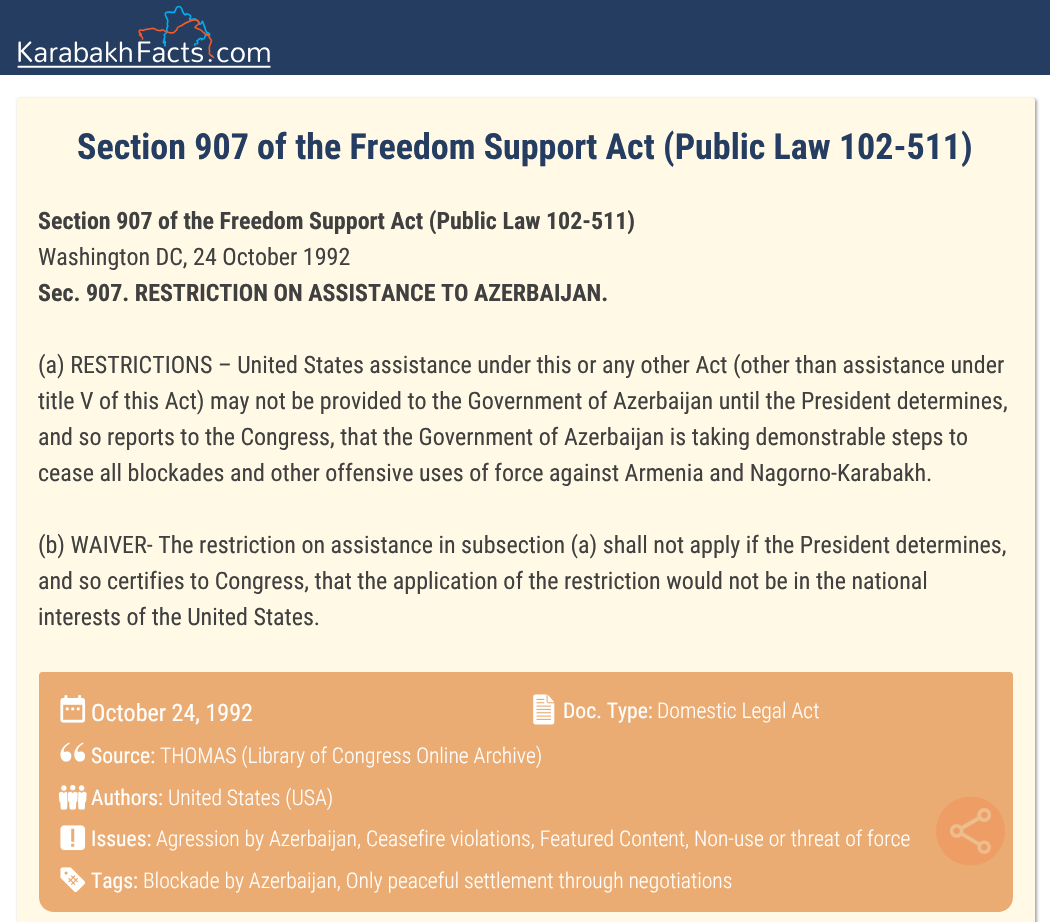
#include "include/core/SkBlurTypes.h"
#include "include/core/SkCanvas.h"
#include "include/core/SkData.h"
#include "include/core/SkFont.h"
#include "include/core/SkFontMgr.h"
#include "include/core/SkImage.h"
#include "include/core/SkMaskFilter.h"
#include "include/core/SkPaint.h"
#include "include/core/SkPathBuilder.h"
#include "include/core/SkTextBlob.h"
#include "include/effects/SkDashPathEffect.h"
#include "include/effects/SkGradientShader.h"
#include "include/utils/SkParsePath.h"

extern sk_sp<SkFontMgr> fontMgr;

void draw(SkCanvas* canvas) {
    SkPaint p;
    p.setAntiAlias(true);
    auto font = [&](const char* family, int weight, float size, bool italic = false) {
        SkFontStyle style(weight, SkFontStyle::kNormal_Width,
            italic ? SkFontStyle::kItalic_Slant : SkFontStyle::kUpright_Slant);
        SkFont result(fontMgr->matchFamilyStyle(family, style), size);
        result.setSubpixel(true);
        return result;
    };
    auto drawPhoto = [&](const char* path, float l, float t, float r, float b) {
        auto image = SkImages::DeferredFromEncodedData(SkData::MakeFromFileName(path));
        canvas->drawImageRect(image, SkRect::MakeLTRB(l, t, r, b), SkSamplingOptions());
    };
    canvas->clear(0xFFFFFFFF);
    p.setColor(0xFF263D62);
    canvas->drawRect(SkRect::MakeLTRB(0, 0, 1050, 75), p);
    drawPhoto("media/1.png", 17, 5, 271, 68);
    p.setColor(0xFFA9A9A9);
    p.setMaskFilter(SkMaskFilter::MakeBlur(kNormal_SkBlurStyle, 1.5f));
    canvas->drawRoundRect(SkRect::MakeLTRB(18, 99, 1037, 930), 3, 3, p);
    p.setMaskFilter(nullptr);
    p.setColor(0xFFFFF9E6);
    canvas->drawRoundRect(SkRect::MakeLTRB(17, 98, 1035, 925), 3, 3, p);
    auto font1 = font("Roboto Condensed", 700, 36);
    p.setColor(0xFF263D62);
    canvas->drawString("Section 907 of the Freedom Support Act (Public Law 102-511)", 77, 159, font1, p);
    auto font2 = font("Roboto Condensed", 700, 24);
    p.setColor(0xFF404040);
    canvas->drawString("Section 907 of the Freedom Support Act (Public Law 102-511)", 38, 229, font2, p);
    auto font3 = font("Roboto Condensed", 400, 24);
    canvas->drawString("Washington DC, 24 October 1992", 38, 265, font3, p);
    canvas->drawString("Sec. 907. RESTRICTION ON ASSISTANCE TO AZERBAIJAN.", 38, 301, font2, p);
    {
        const struct { const char* s; float x, y; } items[] = {
            {"(a) RESTRICTIONS – United States assistance under this or any other Act (other than assistance under", 38, 373},
            {"title V of this Act) may not be provided to the Government of Azerbaijan until the President determines,", 38, 409},
            {"and so reports to the Congress, that the Government of Azerbaijan is taking demonstrable steps to", 38, 445},
            {"cease all blockades and other offensive uses of force against Armenia and Nagorno-Karabakh.", 38, 481},
            {"(b) WAIVER- The restriction on assistance in subsection (a) shall not apply if the President determines,", 38, 553},
            {"and so certifies to Congress, that the application of the restriction would not be in the national", 38, 589},
            {"interests of the United States.", 38, 625},
        };
        for (auto [s, x, y] : items) {
            canvas->drawString(s, x, y, font3, p);
        }
    }
    p.setColor(0xFFEAAC72);
    canvas->drawPath(SkPathBuilder().moveTo(42, 672).lineTo(1010, 672).cubicTo(1011.5f, 672, 1013, 673.5f, 1013, 675).lineTo(1013, 897).cubicTo(1013, 905.5f, 1006.5f, 912, 998, 912).lineTo(54, 912).cubicTo(45.5f, 912, 39, 905.5f, 39, 897).lineTo(39, 675).cubicTo(39, 673.5f, 40.5f, 672, 42, 672).close().detach(), p);
    drawPhoto("media/2.png", 60, 695, 86, 723);
    p.setColor(0xFFFFFFFF);
    canvas->drawString("October 24, 1992", 91, 721, font3, p);
    drawPhoto("media/3.png", 533, 694, 555, 725);
    auto font4 = font("Roboto Condensed", 400, 21.6f);
    canvas->drawString("Doc. Type:", 563, 718, font4, p);
    auto font5 = font("Roboto Condensed", 300, 21.6f);
    canvas->drawString("Domestic Legal Act", 657, 718, font5, p);
    drawPhoto("media/4.png", 60, 742, 86, 762);
    canvas->drawString("Source:", 91, 763, font4, p);
    canvas->drawString("THOMAS (Library of Congress Online Archive)", 160, 763, font5, p);
    drawPhoto("media/5.png", 58, 785, 87, 810);
    canvas->drawString("Authors:", 91, 805, font4, p);
    canvas->drawString("United States (USA)", 168, 805, font5, p);
    drawPhoto("media/6.png", 60, 825, 86, 851);
    canvas->drawString("Issues:", 91, 846, font4, p);
    canvas->drawString("Agression by Azerbaijan, Ceasefire violations, Featured Content, Non-use or threat of force", 156, 846, font5, p);
    drawPhoto("media/7.png", 60, 867, 85, 892);
    canvas->drawString("Tags:", 91, 888, font4, p);
    canvas->drawString("Blockade by Azerbaijan, Only peaceful settlement through negotiations", 143, 888, font5, p);
    drawPhoto("media/8.png", 936, 797, 1005, 866);
}
